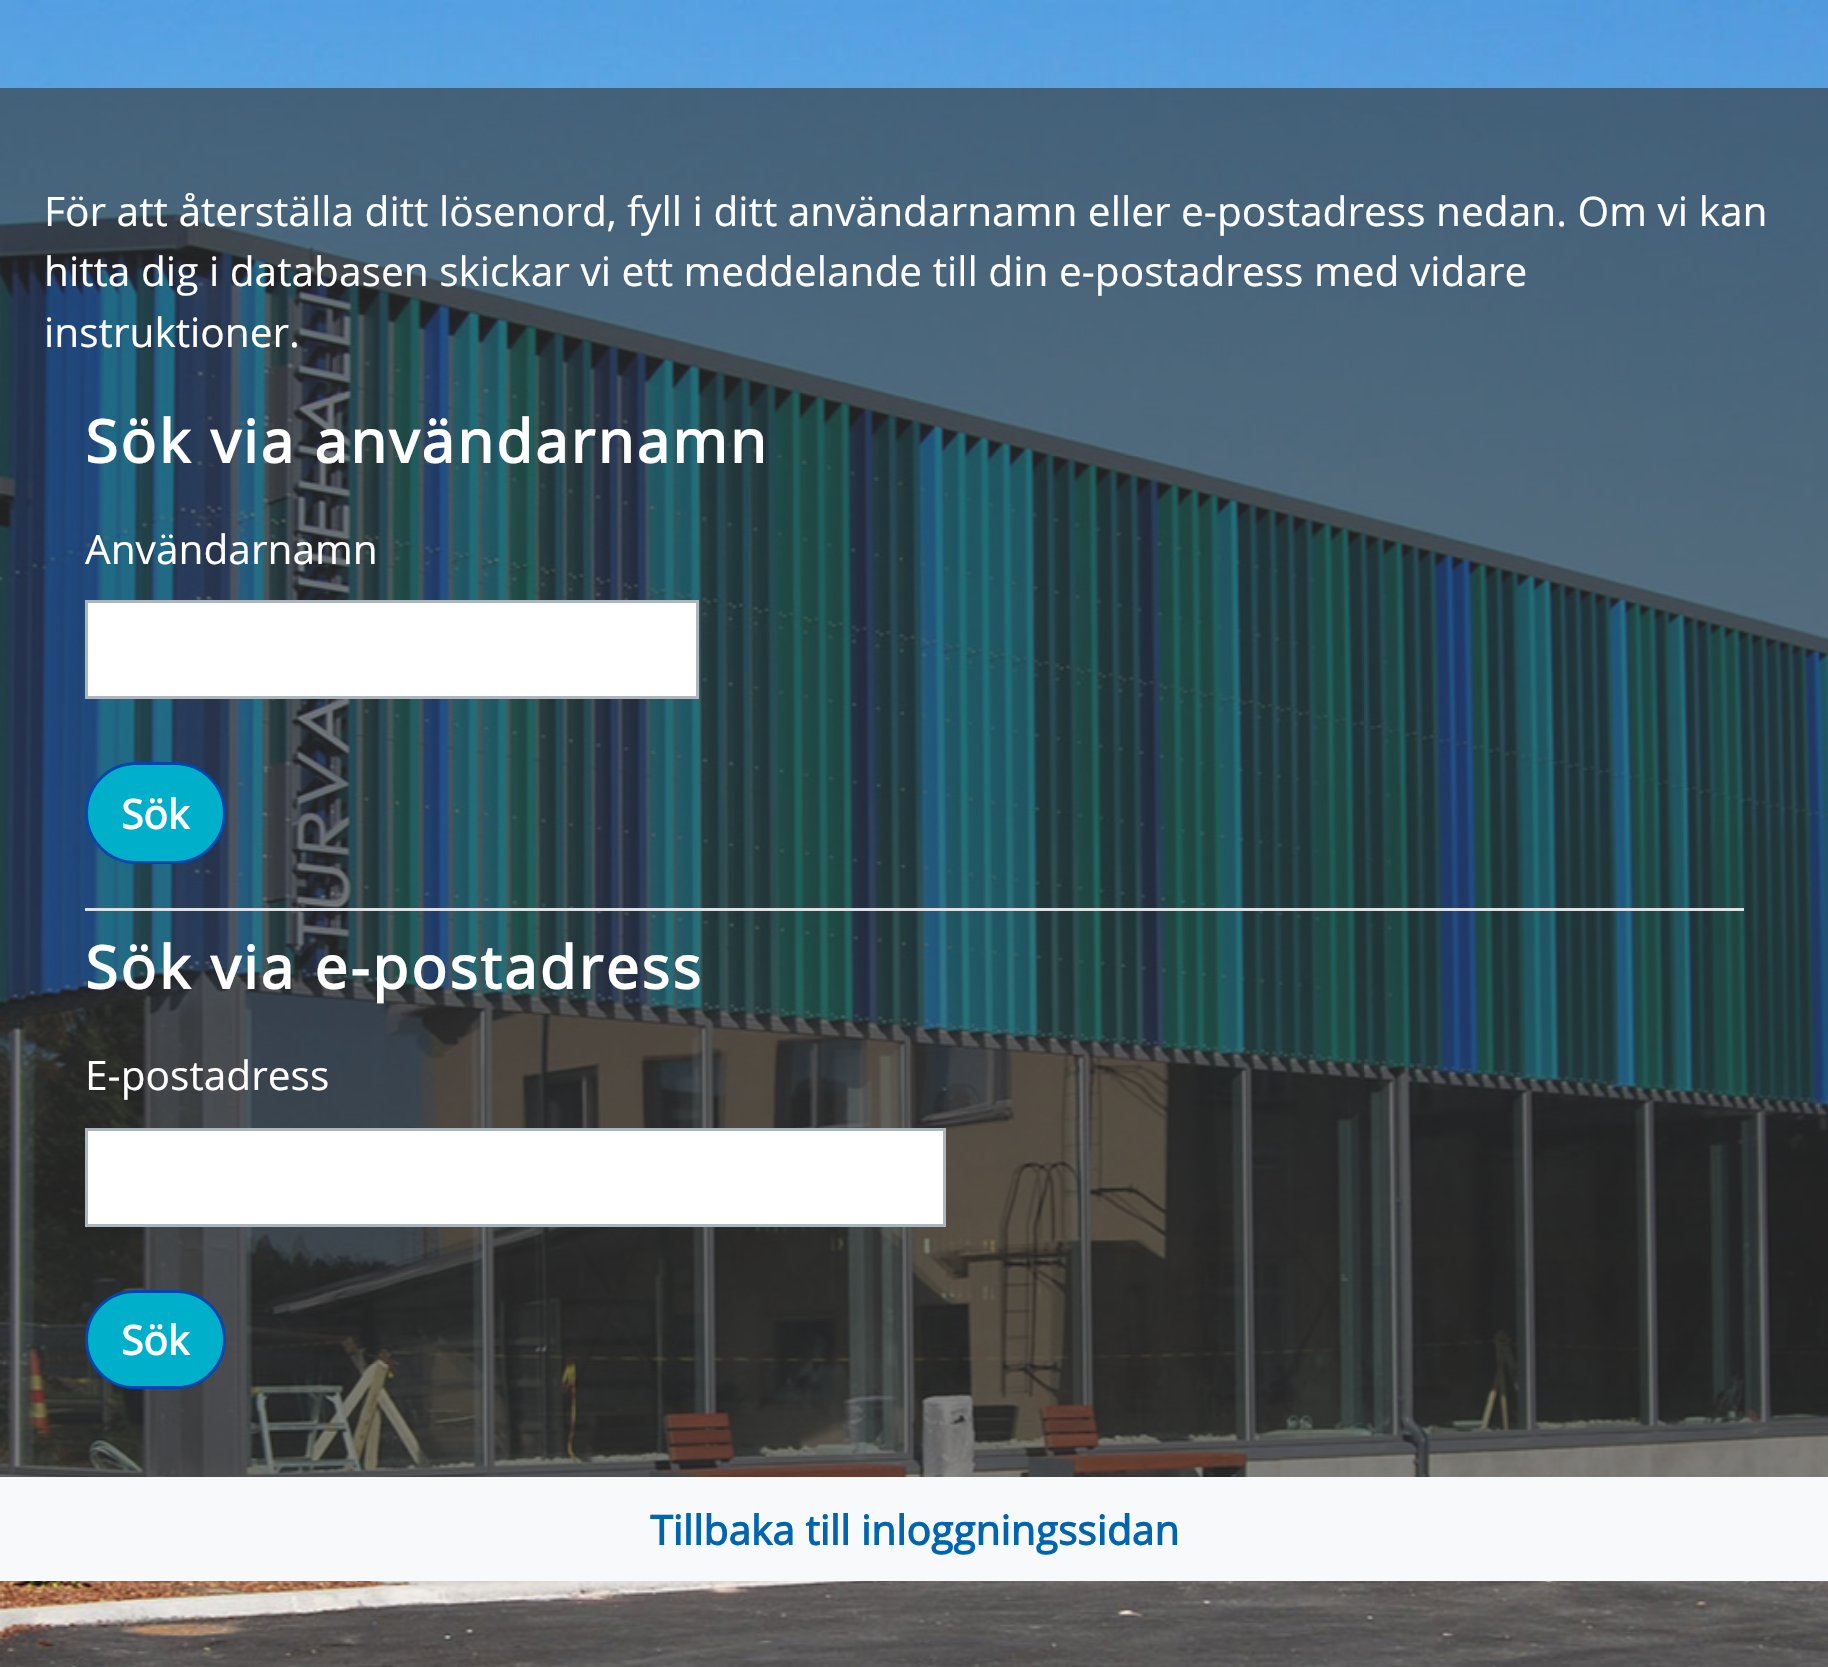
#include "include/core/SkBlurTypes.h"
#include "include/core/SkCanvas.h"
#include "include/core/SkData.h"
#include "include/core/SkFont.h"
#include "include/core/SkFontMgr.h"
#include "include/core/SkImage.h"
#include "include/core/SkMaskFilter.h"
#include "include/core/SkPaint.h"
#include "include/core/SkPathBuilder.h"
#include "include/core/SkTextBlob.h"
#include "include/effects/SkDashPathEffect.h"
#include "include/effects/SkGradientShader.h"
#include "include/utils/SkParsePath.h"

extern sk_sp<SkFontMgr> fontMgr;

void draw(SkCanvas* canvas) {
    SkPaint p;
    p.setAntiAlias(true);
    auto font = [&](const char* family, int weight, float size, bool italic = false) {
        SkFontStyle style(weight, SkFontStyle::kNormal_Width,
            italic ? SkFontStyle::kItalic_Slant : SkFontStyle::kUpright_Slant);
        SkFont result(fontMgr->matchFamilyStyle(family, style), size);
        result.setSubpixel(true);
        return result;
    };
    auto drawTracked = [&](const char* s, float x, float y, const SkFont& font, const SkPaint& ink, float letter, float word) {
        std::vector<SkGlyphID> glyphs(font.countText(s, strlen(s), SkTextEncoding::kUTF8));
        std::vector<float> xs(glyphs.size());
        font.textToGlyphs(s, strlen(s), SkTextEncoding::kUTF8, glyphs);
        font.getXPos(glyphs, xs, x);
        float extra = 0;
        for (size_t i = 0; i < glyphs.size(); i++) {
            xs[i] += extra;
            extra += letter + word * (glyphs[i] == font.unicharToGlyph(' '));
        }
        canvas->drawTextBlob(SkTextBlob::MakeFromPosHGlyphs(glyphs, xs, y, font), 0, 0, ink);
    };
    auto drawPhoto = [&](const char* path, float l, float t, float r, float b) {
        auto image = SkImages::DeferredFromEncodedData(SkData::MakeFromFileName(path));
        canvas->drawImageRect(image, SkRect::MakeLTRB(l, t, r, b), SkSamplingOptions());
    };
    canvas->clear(0xFFFFFFFF);
    drawPhoto("media/1.png", 0, 0, 1828, 1667);
    p.setColor(0x99333333);
    canvas->drawRect(SkRect::MakeLTRB(0, 88, 1828, 1477), p);
    auto font1 = font("Open Sans", 400, 40.6f);
    p.setColor(0xFFFFFFFF);
    {
        const struct { const char* s; float x, y; } items[] = {
            {"För att återställa ditt lösenord, fyll i ditt användarnamn eller e-postadress nedan. Om vi kan", 44, 226},
            {"hitta dig i databasen skickar vi ett meddelande till din e-postadress med vidare", 44, 286},
            {"instruktioner.", 44, 347},
        };
        for (auto [s, x, y] : items) {
            canvas->drawString(s, x, y, font1, p);
        }
    }
    p.setColor(0xFFDEE2E6);
    canvas->drawRect(SkRect::MakeLTRB(85, 908, 1744, 911), p);
    auto font2 = font("Open Sans", 700, 59.1f);
    p.setColor(0xFFFFFFFF);
    drawTracked("Sök via användarnamn", 85, 463, font2, p, 2.75f, 0);
    canvas->drawString("Användarnamn", 85, 564, font1, p);
    canvas->drawRect(SkRect::MakeLTRB(86.5f, 601.5f, 697.5f, 697.5f), p);
    p.setStyle(SkPaint::kStroke_Style);
    p.setStrokeWidth(3);
    p.setColor(0xFFADB5BD);
    canvas->drawRect(SkRect::MakeLTRB(86.5f, 601.5f, 697.5f, 697.5f), p);
    p.setStyle(SkPaint::kFill_Style);
    p.setColor(0xFF00AFCA);
    canvas->drawRoundRect(SkRect::MakeLTRB(86.5f, 763.5f, 224.5f, 862.5f), 49.5f, 49.5f, p);
    p.setStyle(SkPaint::kStroke_Style);
    p.setColor(0xFF0046AD);
    canvas->drawRoundRect(SkRect::MakeLTRB(86.5f, 763.5f, 224.5f, 862.5f), 49.5f, 49.5f, p);
    auto font3 = font("Open Sans", 700, 40.6f);
    p.setStyle(SkPaint::kFill_Style);
    p.setColor(0xFFFFFFFF);
    canvas->drawString("Sök", 121, 829, font3, p);
    drawTracked("Sök via e-postadress", 85, 989, font2, p, 2.75f, 0);
    canvas->drawString("E-postadress", 85, 1090, font1, p);
    canvas->drawRect(SkRect::MakeLTRB(86.5f, 1129.5f, 944.5f, 1225.5f), p);
    p.setStyle(SkPaint::kStroke_Style);
    p.setColor(0xFFADB5BD);
    canvas->drawRect(SkRect::MakeLTRB(86.5f, 1129.5f, 944.5f, 1225.5f), p);
    p.setStyle(SkPaint::kFill_Style);
    p.setColor(0xFF00AFCA);
    canvas->drawRoundRect(SkRect::MakeLTRB(86.5f, 1291.5f, 224.5f, 1387.5f), 48, 48, p);
    p.setStyle(SkPaint::kStroke_Style);
    p.setColor(0xFF0046AD);
    canvas->drawRoundRect(SkRect::MakeLTRB(86.5f, 1291.5f, 224.5f, 1387.5f), 48, 48, p);
    p.setStyle(SkPaint::kFill_Style);
    p.setColor(0xFFFFFFFF);
    canvas->drawString("Sök", 121, 1355, font3, p);
    p.setColor(0xFFF8F9FA);
    canvas->drawRect(SkRect::MakeLTRB(0, 1477, 1828, 1581), p);
    p.setColor(0xFF0064AF);
    canvas->drawString("Tillbaka till inloggningssidan", 650, 1545, font3, p);
}
